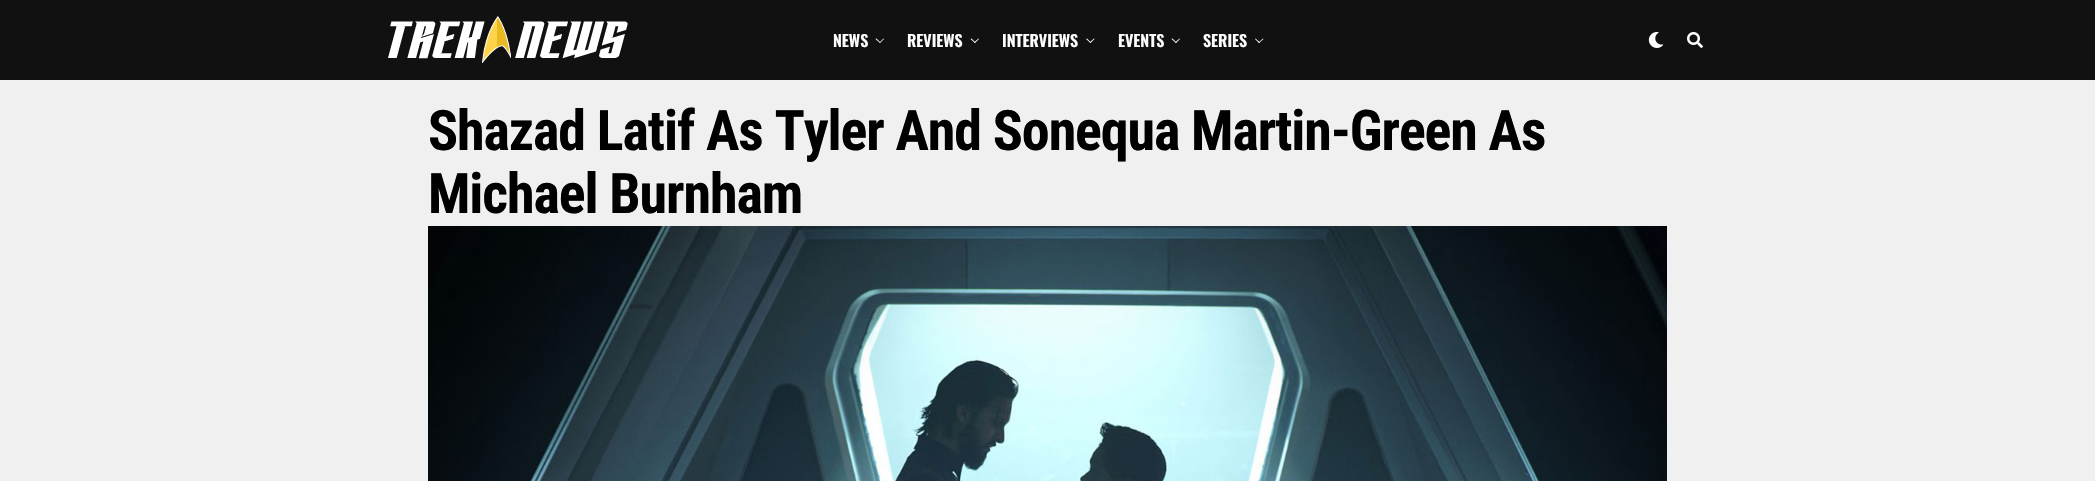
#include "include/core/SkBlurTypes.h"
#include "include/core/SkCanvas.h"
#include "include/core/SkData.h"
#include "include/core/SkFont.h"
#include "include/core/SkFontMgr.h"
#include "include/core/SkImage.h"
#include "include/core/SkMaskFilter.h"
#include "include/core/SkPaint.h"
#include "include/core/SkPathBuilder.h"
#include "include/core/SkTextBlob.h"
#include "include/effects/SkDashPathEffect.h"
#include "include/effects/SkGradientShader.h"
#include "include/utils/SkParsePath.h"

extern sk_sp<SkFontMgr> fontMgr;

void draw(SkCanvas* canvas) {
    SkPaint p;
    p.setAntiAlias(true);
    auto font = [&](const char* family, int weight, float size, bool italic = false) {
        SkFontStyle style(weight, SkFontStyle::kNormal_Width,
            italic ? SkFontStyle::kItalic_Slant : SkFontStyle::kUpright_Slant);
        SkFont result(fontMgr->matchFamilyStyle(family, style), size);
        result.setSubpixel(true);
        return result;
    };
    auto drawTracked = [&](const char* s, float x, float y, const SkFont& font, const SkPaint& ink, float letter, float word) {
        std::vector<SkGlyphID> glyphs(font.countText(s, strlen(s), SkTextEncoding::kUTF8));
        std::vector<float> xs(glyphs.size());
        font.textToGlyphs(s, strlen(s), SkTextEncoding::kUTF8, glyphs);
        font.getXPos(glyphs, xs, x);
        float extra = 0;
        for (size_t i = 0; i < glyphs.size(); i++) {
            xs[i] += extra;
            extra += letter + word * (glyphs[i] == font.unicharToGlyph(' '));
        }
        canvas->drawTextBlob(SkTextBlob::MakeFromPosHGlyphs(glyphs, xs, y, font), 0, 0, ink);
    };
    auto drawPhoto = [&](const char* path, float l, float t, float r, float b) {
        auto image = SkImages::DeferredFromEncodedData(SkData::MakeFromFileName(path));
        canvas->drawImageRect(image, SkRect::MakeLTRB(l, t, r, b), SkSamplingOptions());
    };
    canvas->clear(0xFFF0F0F0);
    p.setColor(0xFF111111);
    canvas->drawRect(SkRect::MakeLTRB(0, 0, 2095, 80), p);
    drawPhoto("media/1.png", 388, 16, 628, 63);
    auto font1 = font("Oswald", 600, 16);
    p.setColor(0xFFFFFFFF);
    canvas->drawString("NEWS", 833, 47, font1, p);
    canvas->drawPath(SkPathBuilder().moveTo(883.5f, 38.5f).lineTo(884, 39).lineTo(880, 43).lineTo(879.5f, 42.5f).close().detach(), p);
    canvas->drawPath(SkPathBuilder().moveTo(876.5f, 38.5f).lineTo(880.5f, 42.5f).lineTo(880, 43).lineTo(875.5f, 39).close().detach(), p);
    canvas->drawString("REVIEWS", 907, 47, font1, p);
    canvas->drawPath(SkPathBuilder().moveTo(978.5f, 38.5f).lineTo(979, 39).lineTo(975, 43).lineTo(974, 42.5f).close().detach(), p);
    canvas->drawPath(SkPathBuilder().moveTo(971.5f, 38.5f).lineTo(975.5f, 42.5f).lineTo(975, 43).lineTo(970.5f, 39).close().detach(), p);
    canvas->drawString("INTERVIEWS", 1002, 47, font1, p);
    canvas->drawPath(SkPathBuilder().moveTo(1094, 38.5f).lineTo(1094.5f, 39).lineTo(1090.5f, 43).lineTo(1089.5f, 42.5f).close().detach(), p);
    canvas->drawPath(SkPathBuilder().moveTo(1087, 38.5f).lineTo(1091, 42.5f).lineTo(1090.5f, 43).lineTo(1086, 39).close().detach(), p);
    canvas->drawString("EVENTS", 1118, 47, font1, p);
    canvas->drawPath(SkPathBuilder().moveTo(1179.5f, 38.5f).lineTo(1180, 39).lineTo(1176, 43).lineTo(1175, 42.5f).close().detach(), p);
    canvas->drawPath(SkPathBuilder().moveTo(1172.5f, 38.5f).lineTo(1176.5f, 42.5f).lineTo(1176, 43).lineTo(1171.5f, 39).close().detach(), p);
    canvas->drawString("SERIES", 1203, 47, font1, p);
    canvas->drawPath(SkPathBuilder().moveTo(1263, 38.5f).lineTo(1263.5f, 39).lineTo(1259, 43).lineTo(1258.5f, 42.5f).close().detach(), p);
    canvas->drawPath(SkPathBuilder().moveTo(1255.5f, 38.5f).lineTo(1260, 42.5f).lineTo(1259, 43).lineTo(1255, 39).close().detach(), p);
    drawPhoto("media/2.png", 1648, 32, 1664, 48);
    drawPhoto("media/3.png", 1687, 32, 1703, 48);
    auto font2 = font("Roboto Condensed", 700, 56);
    p.setColor(0xFF000000);
    drawTracked("Shazad Latif As Tyler And Sonequa Martin-Green As", 428, 150, font2, p, -1.1f, 0);
    drawTracked("Michael Burnham", 428, 213, font2, p, -1.1f, 0);
    drawPhoto("media/4.png", 428, 226, 1667, 481);
}
